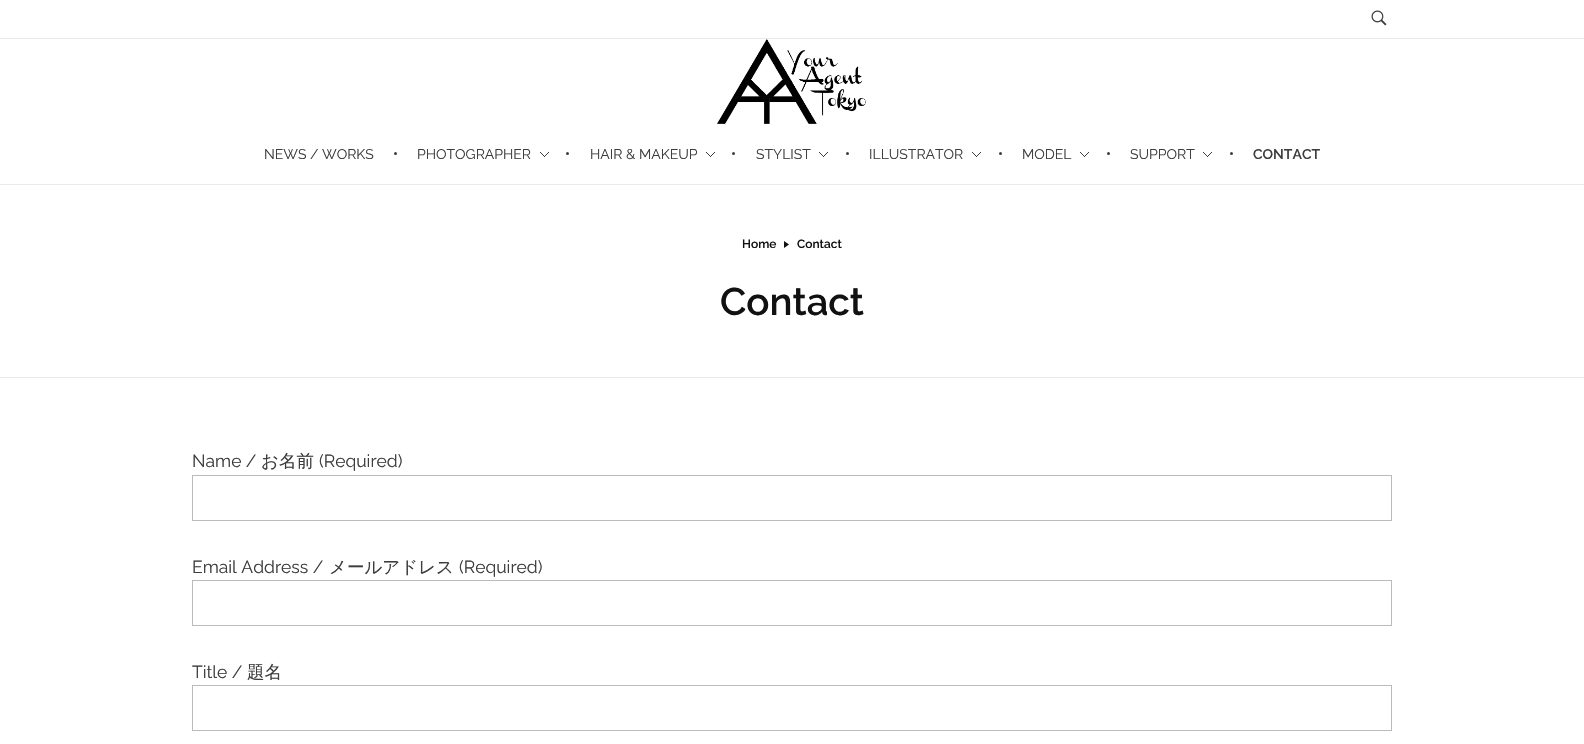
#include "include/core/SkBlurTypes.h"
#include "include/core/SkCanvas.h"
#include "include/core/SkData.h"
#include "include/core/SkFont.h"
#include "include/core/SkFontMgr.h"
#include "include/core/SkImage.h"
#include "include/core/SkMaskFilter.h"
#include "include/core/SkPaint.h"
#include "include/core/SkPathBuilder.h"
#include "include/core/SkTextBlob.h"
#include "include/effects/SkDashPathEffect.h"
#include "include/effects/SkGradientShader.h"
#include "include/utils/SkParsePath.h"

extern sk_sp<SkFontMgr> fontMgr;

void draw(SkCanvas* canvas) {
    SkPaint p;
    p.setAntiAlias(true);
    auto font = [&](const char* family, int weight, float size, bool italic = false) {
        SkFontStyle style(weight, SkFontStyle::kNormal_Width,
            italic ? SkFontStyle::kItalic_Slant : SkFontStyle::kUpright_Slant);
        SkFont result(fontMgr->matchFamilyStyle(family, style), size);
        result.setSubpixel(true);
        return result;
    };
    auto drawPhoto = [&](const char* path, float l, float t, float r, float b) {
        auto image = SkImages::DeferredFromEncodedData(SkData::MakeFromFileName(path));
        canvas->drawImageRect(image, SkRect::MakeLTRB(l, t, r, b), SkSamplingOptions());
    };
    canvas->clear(0xFFFFFFFF);
    p.setColor(0xFFEAEAEA);
    canvas->drawRect(SkRect::MakeLTRB(0, 38, 1584, 39), p);
    drawPhoto("media/1.png", 1371, 10, 1387, 26);
    canvas->drawRect(SkRect::MakeLTRB(0, 184, 1584, 185), p);
    drawPhoto("media/2.png", 717, 39, 866, 124);
    auto font1 = font("Raleway", 400, 14);
    p.setColor(0xFF3D3D3D);
    canvas->drawString("NEWS / WORKS", 264, 159, font1, p);
    canvas->drawCircle(395.5f, 153.5f, 1.5f, p);
    canvas->drawString("PHOTOGRAPHER", 417, 159, font1, p);
    drawPhoto("media/3.png", 540, 152, 549, 157);
    canvas->drawCircle(567.5f, 153.5f, 1.5f, p);
    canvas->drawString("HAIR & MAKEUP", 590, 159, font1, p);
    drawPhoto("media/3.png", 706, 152, 715, 157);
    canvas->drawCircle(733.5f, 153.5f, 1.5f, p);
    canvas->drawString("STYLIST", 756, 159, font1, p);
    drawPhoto("media/3.png", 819, 152, 828, 157);
    canvas->drawCircle(847.5f, 153.5f, 1.5f, p);
    canvas->drawString("ILLUSTRATOR", 869, 159, font1, p);
    drawPhoto("media/3.png", 972, 152, 981, 157);
    canvas->drawCircle(1000.5f, 153.5f, 1.5f, p);
    canvas->drawString("MODEL", 1022, 159, font1, p);
    drawPhoto("media/3.png", 1080, 152, 1089, 157);
    canvas->drawCircle(1108.5f, 153.5f, 1.5f, p);
    canvas->drawString("SUPPORT", 1130, 159, font1, p);
    drawPhoto("media/3.png", 1203, 152, 1212, 157);
    canvas->drawCircle(1231.5f, 153.5f, 1.5f, p);
    auto font2 = font("Raleway", 600, 14);
    canvas->drawString("CONTACT", 1253, 159, font2, p);
    p.setColor(0xFFEAEAEA);
    canvas->drawRect(SkRect::MakeLTRB(0, 377, 1584, 378), p);
    auto font3 = font("Raleway", 600, 12);
    p.setColor(0xFF111111);
    canvas->drawString("Home", 742, 248, font3, p);
    canvas->drawPath(SkPathBuilder().moveTo(784, 241).lineTo(784, 248).lineTo(789, 244.5f).close().detach(), p);
    canvas->drawString("Contact", 797, 248, font3, p);
    auto font4 = font("Raleway", 600, 38.5f);
    canvas->drawString("Contact", 720, 315, font4, p);
    auto font5 = font("Raleway", 400, 17.5f);
    p.setColor(0xFF3D3D3D);
    canvas->drawString("Name /", 192, 467, font5, p);
    auto font6 = font("WenQuanYi Zen Hei", 500, 17.5f);
    canvas->drawString("お名前", 261, 467, font6, p);
    canvas->drawString("(Required)", 319, 467, font5, p);
    p.setStyle(SkPaint::kStroke_Style);
    p.setStrokeWidth(1);
    p.setColor(0xFFBBBBBB);
    canvas->drawRect(SkRect::MakeLTRB(192.5f, 475.5f, 1391.5f, 520.5f), p);
    p.setStyle(SkPaint::kFill_Style);
    p.setColor(0xFF3D3D3D);
    canvas->drawString("Email Address /", 192, 573, font5, p);
    canvas->drawString("メールアドレス", 329, 573, font6, p);
    canvas->drawString("(Required)", 459, 573, font5, p);
    p.setStyle(SkPaint::kStroke_Style);
    p.setColor(0xFFBBBBBB);
    canvas->drawRect(SkRect::MakeLTRB(192.5f, 580.5f, 1391.5f, 625.5f), p);
    p.setStyle(SkPaint::kFill_Style);
    p.setColor(0xFF3D3D3D);
    canvas->drawString("Title /", 192, 678, font5, p);
    canvas->drawString("題名", 247, 678, font6, p);
    p.setStyle(SkPaint::kStroke_Style);
    p.setColor(0xFFBBBBBB);
    canvas->drawRect(SkRect::MakeLTRB(192.5f, 685.5f, 1391.5f, 730.5f), p);
}
